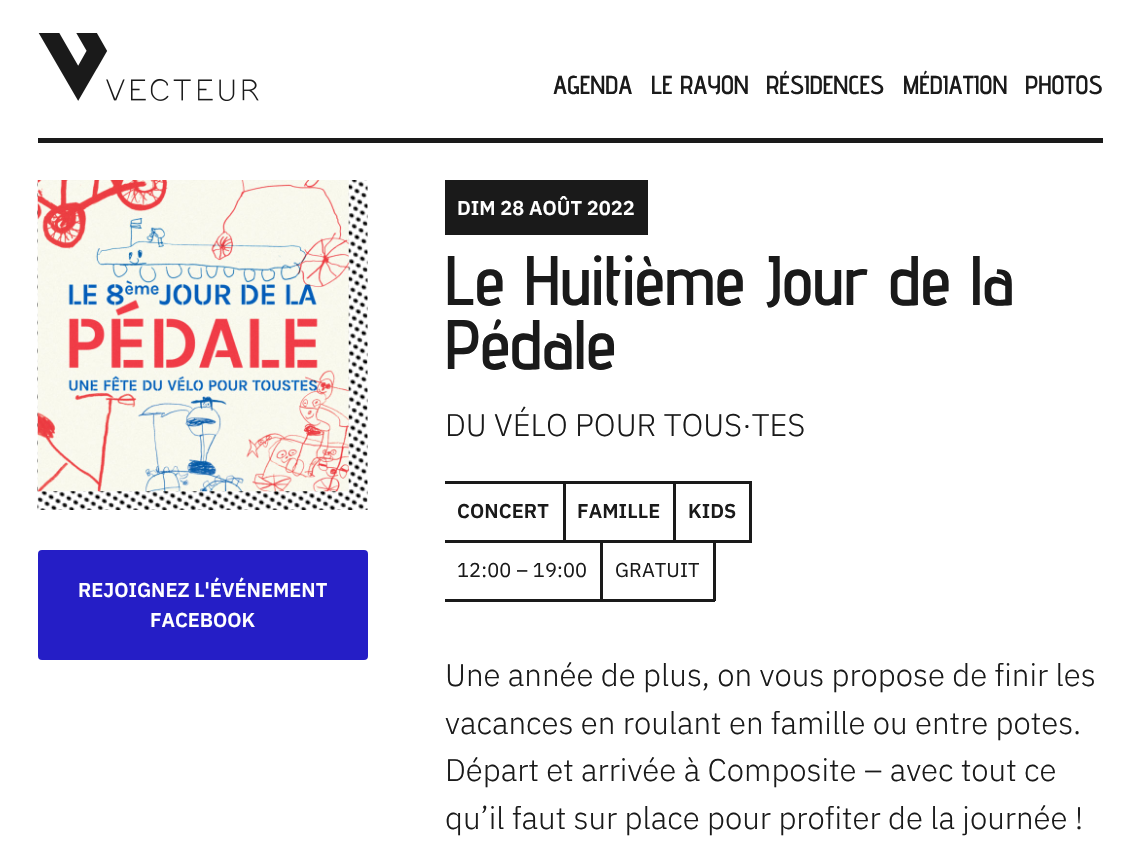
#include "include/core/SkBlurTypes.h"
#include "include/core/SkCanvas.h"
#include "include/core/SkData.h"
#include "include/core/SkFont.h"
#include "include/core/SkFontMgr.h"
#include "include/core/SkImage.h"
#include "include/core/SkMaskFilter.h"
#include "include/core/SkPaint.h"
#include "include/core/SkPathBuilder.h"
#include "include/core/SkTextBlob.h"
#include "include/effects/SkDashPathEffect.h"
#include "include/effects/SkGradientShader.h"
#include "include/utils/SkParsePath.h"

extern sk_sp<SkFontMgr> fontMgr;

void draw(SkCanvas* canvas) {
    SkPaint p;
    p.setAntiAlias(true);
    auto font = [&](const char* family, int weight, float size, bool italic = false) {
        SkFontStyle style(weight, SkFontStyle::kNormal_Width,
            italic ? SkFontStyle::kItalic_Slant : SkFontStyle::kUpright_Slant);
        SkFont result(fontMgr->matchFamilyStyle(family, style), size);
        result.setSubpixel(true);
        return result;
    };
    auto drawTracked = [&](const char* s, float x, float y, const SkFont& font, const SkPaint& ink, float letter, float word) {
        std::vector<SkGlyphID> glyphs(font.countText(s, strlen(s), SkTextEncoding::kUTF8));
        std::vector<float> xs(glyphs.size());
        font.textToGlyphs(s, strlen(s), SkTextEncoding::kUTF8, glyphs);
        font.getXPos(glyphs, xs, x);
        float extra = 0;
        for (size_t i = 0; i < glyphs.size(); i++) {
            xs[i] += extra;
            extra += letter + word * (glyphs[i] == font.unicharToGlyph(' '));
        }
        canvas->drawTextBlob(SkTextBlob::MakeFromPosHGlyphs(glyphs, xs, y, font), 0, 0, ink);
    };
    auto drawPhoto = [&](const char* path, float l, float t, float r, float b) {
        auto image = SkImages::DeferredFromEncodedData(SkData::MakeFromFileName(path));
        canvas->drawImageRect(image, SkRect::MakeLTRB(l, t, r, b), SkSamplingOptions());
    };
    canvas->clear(0xFFFFFFFF);
    p.setColor(0xFF1A1A1A);
    canvas->drawRect(SkRect::MakeLTRB(38, 138, 1103, 143), p);
    drawPhoto("media/1.png", 38, 33, 259, 101);
    auto font1 = font("Advent Pro", 600, 26);
    {
        const struct { const char* s; float x, y; } items[] = {
            {"AGENDA", 553, 94},
            {"LE RAYON", 651, 94},
            {"RÉSIDENCES", 766, 94},
            {"MÉDIATION", 903, 94},
            {"PHOTOS", 1025, 94},
        };
        for (auto [s, x, y] : items) {
            canvas->drawString(s, x, y, font1, p);
        }
    }
    drawPhoto("media/2.png", 37, 180, 368, 510);
    drawPhoto("media/3.png", 37, 180, 349, 492);
    p.setColor(0xFF251EC6);
    canvas->drawRoundRect(SkRect::MakeLTRB(38, 550, 368, 660), 4, 4, p);
    auto font2 = font("IBM Plex Sans", 600, 20);
    p.setColor(0xFFFFFFFF);
    canvas->drawString("REJOIGNEZ L'ÉVÉNEMENT", 78, 597, font2, p);
    canvas->drawString("FACEBOOK", 150, 627, font2, p);
    p.setColor(0xFF1A1A1A);
    canvas->drawRect(SkRect::MakeLTRB(445, 180, 648, 235), p);
    p.setColor(0xFFFFFFFF);
    canvas->drawString("DIM 28 AOÛT 2022", 457, 215, font2, p);
    auto font3 = font("Advent Pro", 600, 70);
    p.setColor(0xFF1A1A1A);
    canvas->drawString("Le Huitième Jour de la", 445, 305, font3, p);
    canvas->drawString("Pédale", 445, 369, font3, p);
    auto font4 = font("IBM Plex Sans", 300, 31.25f);
    canvas->drawString("DU VÉLO POUR TOUS·TES", 445, 436, font4, p);
    {
        const struct { float l, t, r, b; SkColor color; } items[] = {
            {445, 481, 565, 484, 0xFF1A1A1A},
            {563, 481, 566, 543, 0xFF1A1A1A},
            {445, 540, 565, 543, 0xFF1A1A1A},
        };
        for (auto [l, t, r, b, color] : items) {
            p.setColor(color);
            canvas->drawRect(SkRect::MakeLTRB(l, t, r, b), p);
        }
    }
    drawTracked("CONCERT", 457, 518, font2, p, 0.1f, 0);
    {
        const struct { float l, t, r, b; SkColor color; } items[] = {
            {565, 481, 675, 484, 0xFF1A1A1A},
            {673, 481, 676, 543, 0xFF1A1A1A},
            {565, 540, 675, 543, 0xFF1A1A1A},
        };
        for (auto [l, t, r, b, color] : items) {
            p.setColor(color);
            canvas->drawRect(SkRect::MakeLTRB(l, t, r, b), p);
        }
    }
    drawTracked("FAMILLE", 577, 518, font2, p, 0.1f, 0);
    {
        const struct { float l, t, r, b; SkColor color; } items[] = {
            {675, 481, 751, 484, 0xFF1A1A1A},
            {749, 481, 752, 543, 0xFF1A1A1A},
            {675, 540, 751, 543, 0xFF1A1A1A},
        };
        for (auto [l, t, r, b, color] : items) {
            p.setColor(color);
            canvas->drawRect(SkRect::MakeLTRB(l, t, r, b), p);
        }
    }
    drawTracked("KIDS", 688, 518, font2, p, 0.1f, 0);
    canvas->drawRect(SkRect::MakeLTRB(600, 540, 603, 601), p);
    canvas->drawRect(SkRect::MakeLTRB(445, 599, 603, 602), p);
    auto font5 = font("IBM Plex Sans", 400, 20);
    drawTracked("12:00 – 19:00", 457, 577, font5, p, 0.1f, 0);
    canvas->drawRect(SkRect::MakeLTRB(713, 540, 716, 601), p);
    canvas->drawRect(SkRect::MakeLTRB(603, 599, 715, 602), p);
    drawTracked("GRATUIT", 615, 577, font5, p, 0.1f, 0);
    {
        const struct { const char* s; float x, y; } items[] = {
            {"Une année de plus, on vous propose de finir les", 445, 686},
            {"vacances en roulant en famille ou entre potes.", 445, 734},
            {"Départ et arrivée à Composite – avec tout ce", 445, 781},
            {"qu’il faut sur place pour profiter de la journée !", 445, 829},
        };
        for (auto [s, x, y] : items) {
            canvas->drawString(s, x, y, font4, p);
        }
    }
}
